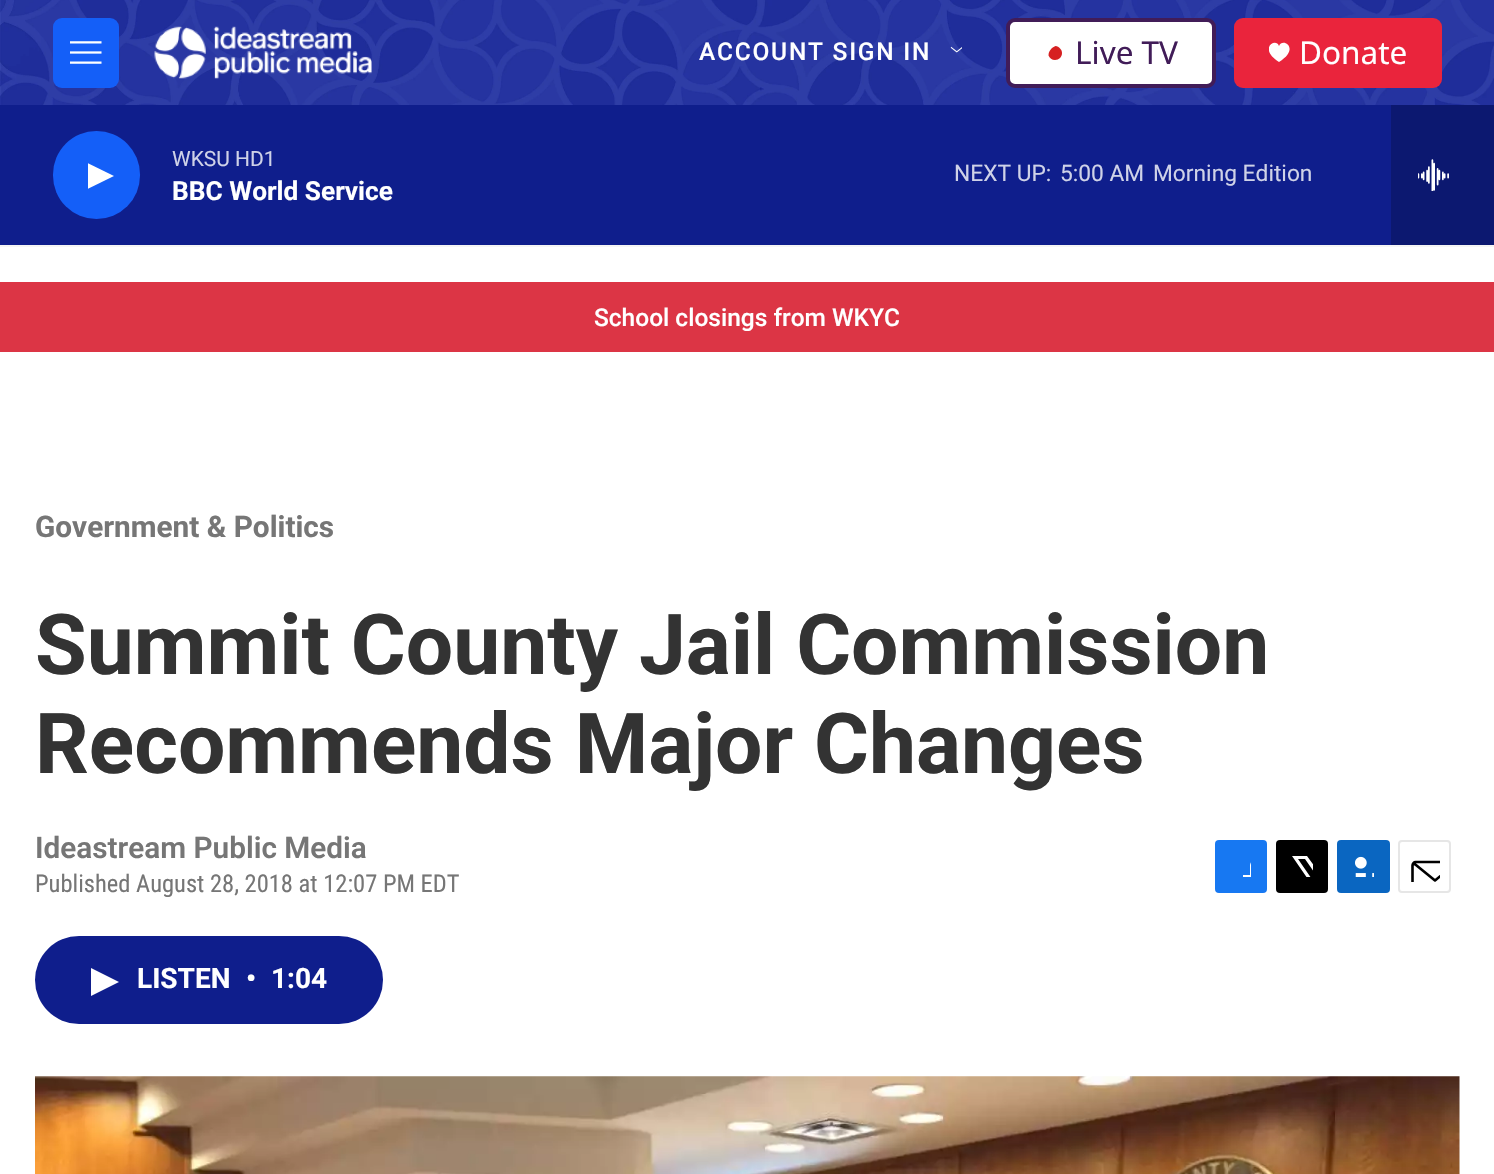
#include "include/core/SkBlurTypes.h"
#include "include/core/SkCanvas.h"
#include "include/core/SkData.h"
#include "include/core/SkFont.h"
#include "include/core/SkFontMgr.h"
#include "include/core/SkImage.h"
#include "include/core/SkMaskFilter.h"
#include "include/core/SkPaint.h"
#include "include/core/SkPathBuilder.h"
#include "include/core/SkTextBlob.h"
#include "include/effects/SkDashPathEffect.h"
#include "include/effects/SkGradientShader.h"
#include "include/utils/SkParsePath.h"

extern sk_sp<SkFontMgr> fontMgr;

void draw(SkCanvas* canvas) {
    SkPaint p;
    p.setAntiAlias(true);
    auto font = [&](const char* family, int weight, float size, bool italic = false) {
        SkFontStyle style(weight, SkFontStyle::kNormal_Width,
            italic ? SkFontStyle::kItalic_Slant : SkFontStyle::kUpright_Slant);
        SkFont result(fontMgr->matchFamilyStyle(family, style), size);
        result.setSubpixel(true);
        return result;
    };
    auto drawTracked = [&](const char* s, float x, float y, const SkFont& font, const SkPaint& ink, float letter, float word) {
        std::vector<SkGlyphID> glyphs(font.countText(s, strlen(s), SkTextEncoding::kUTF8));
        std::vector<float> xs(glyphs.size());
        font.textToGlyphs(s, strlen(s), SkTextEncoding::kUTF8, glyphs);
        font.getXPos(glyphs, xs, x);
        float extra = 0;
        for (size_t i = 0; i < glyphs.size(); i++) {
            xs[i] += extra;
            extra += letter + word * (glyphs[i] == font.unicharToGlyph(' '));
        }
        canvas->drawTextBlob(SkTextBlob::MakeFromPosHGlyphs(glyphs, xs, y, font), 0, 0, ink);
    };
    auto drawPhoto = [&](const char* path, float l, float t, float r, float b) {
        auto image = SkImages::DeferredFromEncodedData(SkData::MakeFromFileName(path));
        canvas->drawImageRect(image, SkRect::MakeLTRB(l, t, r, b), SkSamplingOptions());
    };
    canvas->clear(0xFFFFFFFF);
    p.setColor(0xFFF5F5F5);
    canvas->drawRect(SkRect::MakeLTRB(0, 245, 1494, 247), p);
    drawPhoto("media/1.png", 0, 0, 1494, 105);
    p.setColor(0xFF145FF8);
    canvas->drawRoundRect(SkRect::MakeLTRB(53, 18, 119, 88), 9, 9, p);
    drawPhoto("media/2.png", 70, 41, 102, 64);
    drawPhoto("media/3.png", 154, 26, 372, 79);
    auto font1 = font("Roboto", 500, 24.5f);
    p.setColor(0xFFFFFFFF);
    drawTracked("ACCOUNT SIGN IN", 699, 60, font1, p, 1.75f, 0);
    drawPhoto("media/4.png", 950, 46, 962, 53);
    canvas->drawRoundRect(SkRect::MakeLTRB(1008, 20, 1214, 86), 7, 7, p);
    p.setStyle(SkPaint::kStroke_Style);
    p.setStrokeWidth(4);
    p.setColor(0xFF411C58);
    canvas->drawRoundRect(SkRect::MakeLTRB(1008, 20, 1214, 86), 7, 7, p);
    p.setStyle(SkPaint::kFill_Style);
    p.setColor(0xFFD62021);
    canvas->drawPath(SkPathBuilder().moveTo(1048.5f, 55.5f).cubicTo(1048.5f, 51, 1051.5f, 47.5f, 1055.5f, 46).cubicTo(1059, 46.5f, 1062, 49.5f, 1062, 53).cubicTo(1062, 57, 1059, 60, 1055, 60).cubicTo(1052, 60, 1049.5f, 58, 1048.5f, 55.5f).close().detach(), p);
    auto font2 = font("Noto Sans", 400, 31.5f);
    p.setColor(0xFF411C58);
    canvas->drawString("Live TV", 1075, 64, font2, p);
    p.setColor(0xFFEA243C);
    canvas->drawRoundRect(SkRect::MakeLTRB(1234, 18, 1442, 88), 9, 9, p);
    canvas->save();
    canvas->clipRect(SkRect::MakeLTRB(1269, 42, 1290, 63));
    p.setColor(0xFFFFFFFF);
    canvas->drawPath(SkPathBuilder().moveTo(1279, 46).cubicTo(1276, 37, 1257.5f, 48.5f, 1279, 62).cubicTo(1301, 48.5f, 1282.5f, 37, 1279, 46).close().detach(), p);
    canvas->restore();
    canvas->drawString("Donate", 1299, 64, font2, p);
    p.setColor(0xFF0F1E8C);
    canvas->drawRect(SkRect::MakeLTRB(0, 105, 1391, 245), p);
    p.setColor(0xFF145FF8);
    canvas->drawRoundRect(SkRect::MakeLTRB(53, 131, 140, 219), 43.5f, 43.5f, p);
    canvas->save();
    canvas->clipRect(SkRect::MakeLTRB(88, 159, 114, 193));
    p.setColor(0xFFFFFFFF);
    canvas->drawPath(SkPathBuilder().moveTo(87.5f, 163).lineTo(114, 176).lineTo(87.5f, 189).close().detach(), p);
    canvas->restore();
    auto font3 = font("Roboto", 400, 21);
    p.setColor(0xFFCFD2E8);
    canvas->drawString("WKSU HD1", 172, 166, font3, p);
    auto font4 = font("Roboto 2", 700, 26.25f);
    p.setColor(0xFFFFFFFF);
    canvas->drawString("BBC World Service", 172, 200, font4, p);
    auto font5 = font("Roboto", 400, 22.75f);
    p.setColor(0xFFCFD2E8);
    {
        const struct { const char* s; float x, y; } items[] = {
            {"NEXT UP:", 954, 181},
            {"5:00 AM", 1060, 181},
            {"Morning Edition", 1153, 181},
        };
        for (auto [s, x, y] : items) {
            canvas->drawString(s, x, y, font5, p);
        }
    }
    p.setColor(0xFF0C1870);
    canvas->drawRect(SkRect::MakeLTRB(1391, 105, 1494, 245), p);
    drawPhoto("media/5.png", 1418, 159, 1449, 191);
    p.setColor(0xFFDC3545);
    canvas->drawRect(SkRect::MakeLTRB(0, 282, 1494, 352), p);
    p.setColor(0xFFFFFFFF);
    canvas->drawString("School closings from WKYC", 594, 326, font1, p);
    auto font6 = font("Roboto", 700, 29.75f);
    p.setColor(0xFF767676);
    canvas->drawString("Government & Politics", 35, 537, font6, p);
    auto font7 = font("Roboto", 700, 84);
    p.setColor(0xFF333333);
    canvas->drawString("Summit County Jail Commission", 35, 674, font7, p);
    canvas->drawString("Recommends Major Changes", 35, 773, font7, p);
    auto font8 = font("Roboto", 600, 29.75f);
    p.setColor(0xFF767676);
    canvas->drawString("Ideastream Public Media", 35, 858, font8, p);
    auto font9 = font("Roboto Condensed", 400, 24.5f);
    canvas->drawString("Published August 28, 2018 at 12:07 PM EDT", 35, 892, font9, p);
    p.setColor(0xFF1778F2);
    canvas->drawRoundRect(SkRect::MakeLTRB(1215, 840, 1267, 893), 4, 4, p);
    canvas->save();
    canvas->clipRect(SkRect::MakeLTRB(1230, 856, 1251, 877));
    p.setColor(0xFFFFFFFF);
    canvas->drawPath(SkPathBuilder().moveTo(1259, 893).lineTo(1250, 893).lineTo(1250, 884).lineTo(1243, 884).lineTo(1243, 875).lineTo(1250, 875).lineTo(1250, 865).cubicTo(1252, 856.5f, 1260, 856, 1267, 857).lineTo(1267, 865).cubicTo(1257.5f, 865, 1259, 866.5f, 1259, 875).lineTo(1267, 875).lineTo(1267, 879.5f).lineTo(1266, 884).lineTo(1259, 884).close().detach(), p);
    canvas->restore();
    p.setColor(0xFF000000);
    canvas->drawRoundRect(SkRect::MakeLTRB(1276, 840, 1328, 893), 4, 4, p);
    canvas->save();
    canvas->clipRect(SkRect::MakeLTRB(1292, 856, 1313, 877));
    p.setColor(0xFFFFFFFF);
    canvas->drawPath(SkPathBuilder().moveTo(1323, 878).lineTo(1328, 885.5f).cubicTo(1328, 887.5f, 1328.5f, 889.5f, 1327.5f, 891).lineTo(1305, 859).lineTo(1298, 859).lineTo(1321.5f, 893).lineTo(1317.5f, 893).lineTo(1314, 888).lineTo(1310, 893).lineTo(1305, 893).lineTo(1312, 885).lineTo(1292, 856).lineTo(1307, 856).lineTo(1321, 875).lineTo(1328, 866.5f).lineTo(1328, 872).close().detach(), p);
    canvas->restore();
    p.setColor(0xFF0A66C1);
    canvas->drawRoundRect(SkRect::MakeLTRB(1337, 840, 1390, 893), 4, 4, p);
    drawPhoto("media/6.png", 1355, 856, 1374, 877);
    p.setStyle(SkPaint::kStroke_Style);
    p.setStrokeWidth(2);
    p.setColor(0xFFE6E6E6);
    canvas->drawRoundRect(SkRect::MakeLTRB(1399, 841, 1450, 892), 3, 3, p);
    canvas->save();
    canvas->clipRect(SkRect::MakeLTRB(1409, 851, 1440, 882));
    p.setStrokeWidth(2.6f);
    p.setStrokeCap(SkPaint::kRound_Cap);
    p.setStrokeJoin(SkPaint::kRound_Join);
    p.setColor(0xFF000000);
    canvas->drawPath(SkPathBuilder().moveTo(1457.5f, 889).cubicTo(1457.5f, 890.5f, 1456, 892, 1454.5f, 892).lineTo(1415.5f, 892).cubicTo(1414, 892, 1412.5f, 890.5f, 1412.5f, 889).lineTo(1412.5f, 865.5f).cubicTo(1412.5f, 863.5f, 1414, 862, 1415.5f, 862).lineTo(1454.5f, 862).cubicTo(1456, 862, 1457.5f, 863.5f, 1457.5f, 865.5f).close().moveTo(1456.5f, 863).lineTo(1435, 880.5f).lineTo(1413.5f, 863).detach(), p);
    canvas->restore();
    p.setStyle(SkPaint::kFill_Style);
    p.setColor(0xFF0F1E8C);
    canvas->drawRoundRect(SkRect::MakeLTRB(35, 936, 383, 1024), 44, 44, p);
    p.setColor(0xFFFFFFFF);
    canvas->drawPath(SkPathBuilder().moveTo(91, 968).lineTo(119, 982).lineTo(91, 996).close().detach(), p);
    auto font10 = font("Roboto 2", 700, 28);
    {
        const struct { const char* s; float x, y; } items[] = {
            {"LISTEN", 137, 988},
            {"•", 246, 988},
            {"1:04", 271, 988},
        };
        for (auto [s, x, y] : items) {
            canvas->drawString(s, x, y, font10, p);
        }
    }
    drawPhoto("media/7.png", 35, 1076, 1460, 1174);
}
